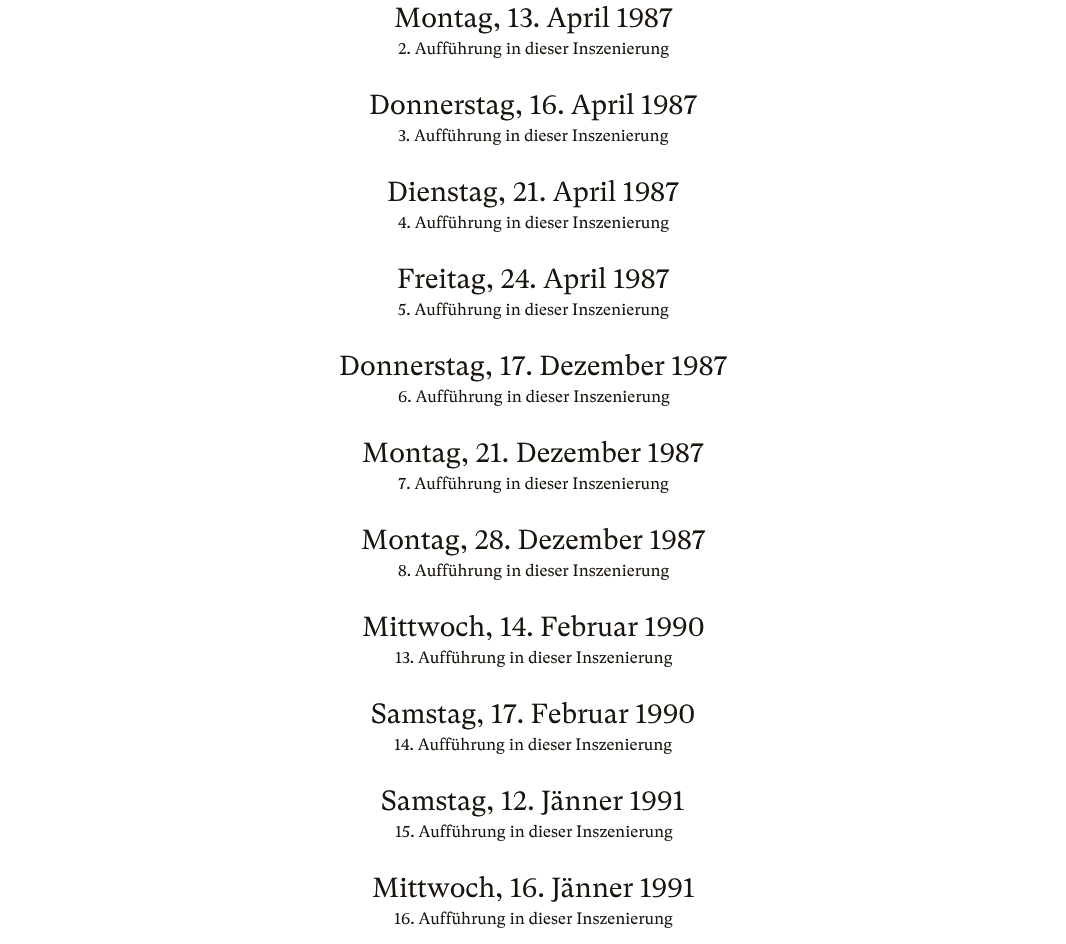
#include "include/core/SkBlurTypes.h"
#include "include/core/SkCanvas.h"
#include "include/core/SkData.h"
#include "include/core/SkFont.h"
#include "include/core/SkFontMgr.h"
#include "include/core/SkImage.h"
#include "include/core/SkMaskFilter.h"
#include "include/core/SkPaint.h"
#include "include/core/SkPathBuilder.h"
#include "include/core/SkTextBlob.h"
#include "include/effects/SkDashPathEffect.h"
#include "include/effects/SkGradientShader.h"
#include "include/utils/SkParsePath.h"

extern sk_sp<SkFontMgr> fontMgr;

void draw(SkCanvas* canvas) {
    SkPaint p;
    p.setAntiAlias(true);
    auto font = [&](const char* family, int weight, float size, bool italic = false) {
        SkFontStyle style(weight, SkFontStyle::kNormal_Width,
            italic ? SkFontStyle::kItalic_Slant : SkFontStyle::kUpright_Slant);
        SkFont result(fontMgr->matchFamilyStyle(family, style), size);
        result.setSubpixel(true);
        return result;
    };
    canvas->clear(0xFFFFFFFF);
    auto font1 = font("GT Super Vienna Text", 400, 27.5f);
    p.setColor(0xFF19140E);
    canvas->drawString("Montag, 13. April 1987", 394, 27, font1, p);
    auto font2 = font("GT Super Vienna Text", 400, 16.25f);
    canvas->drawString("2. Aufführung in dieser Inszenierung", 398, 54, font2, p);
    canvas->drawString("Donnerstag, 16. April 1987", 369, 114, font1, p);
    canvas->drawString("3. Aufführung in dieser Inszenierung", 398, 141, font2, p);
    canvas->drawString("Dienstag, 21. April 1987", 387, 201, font1, p);
    canvas->drawString("4. Aufführung in dieser Inszenierung", 398, 228, font2, p);
    canvas->drawString("Freitag, 24. April 1987", 397, 288, font1, p);
    canvas->drawString("5. Aufführung in dieser Inszenierung", 398, 315, font2, p);
    canvas->drawString("Donnerstag, 17. Dezember 1987", 339, 375, font1, p);
    canvas->drawString("6. Aufführung in dieser Inszenierung", 398, 402, font2, p);
    canvas->drawString("Montag, 21. Dezember 1987", 362, 462, font1, p);
    canvas->drawString("7. Aufführung in dieser Inszenierung", 398, 489, font2, p);
    canvas->drawString("Montag, 28. Dezember 1987", 361, 549, font1, p);
    canvas->drawString("8. Aufführung in dieser Inszenierung", 398, 576, font2, p);
    canvas->drawString("Mittwoch, 14. Februar 1990", 362, 636, font1, p);
    canvas->drawString("13. Aufführung in dieser Inszenierung", 395, 663, font2, p);
    canvas->drawString("Samstag, 17. Februar 1990", 371, 723, font1, p);
    canvas->drawString("14. Aufführung in dieser Inszenierung", 394, 750, font2, p);
    canvas->drawString("Samstag, 12. Jänner 1991", 381, 810, font1, p);
    canvas->drawString("15. Aufführung in dieser Inszenierung", 395, 837, font2, p);
    canvas->drawString("Mittwoch, 16. Jänner 1991", 372, 897, font1, p);
    canvas->drawString("16. Aufführung in dieser Inszenierung", 394, 924, font2, p);
}
